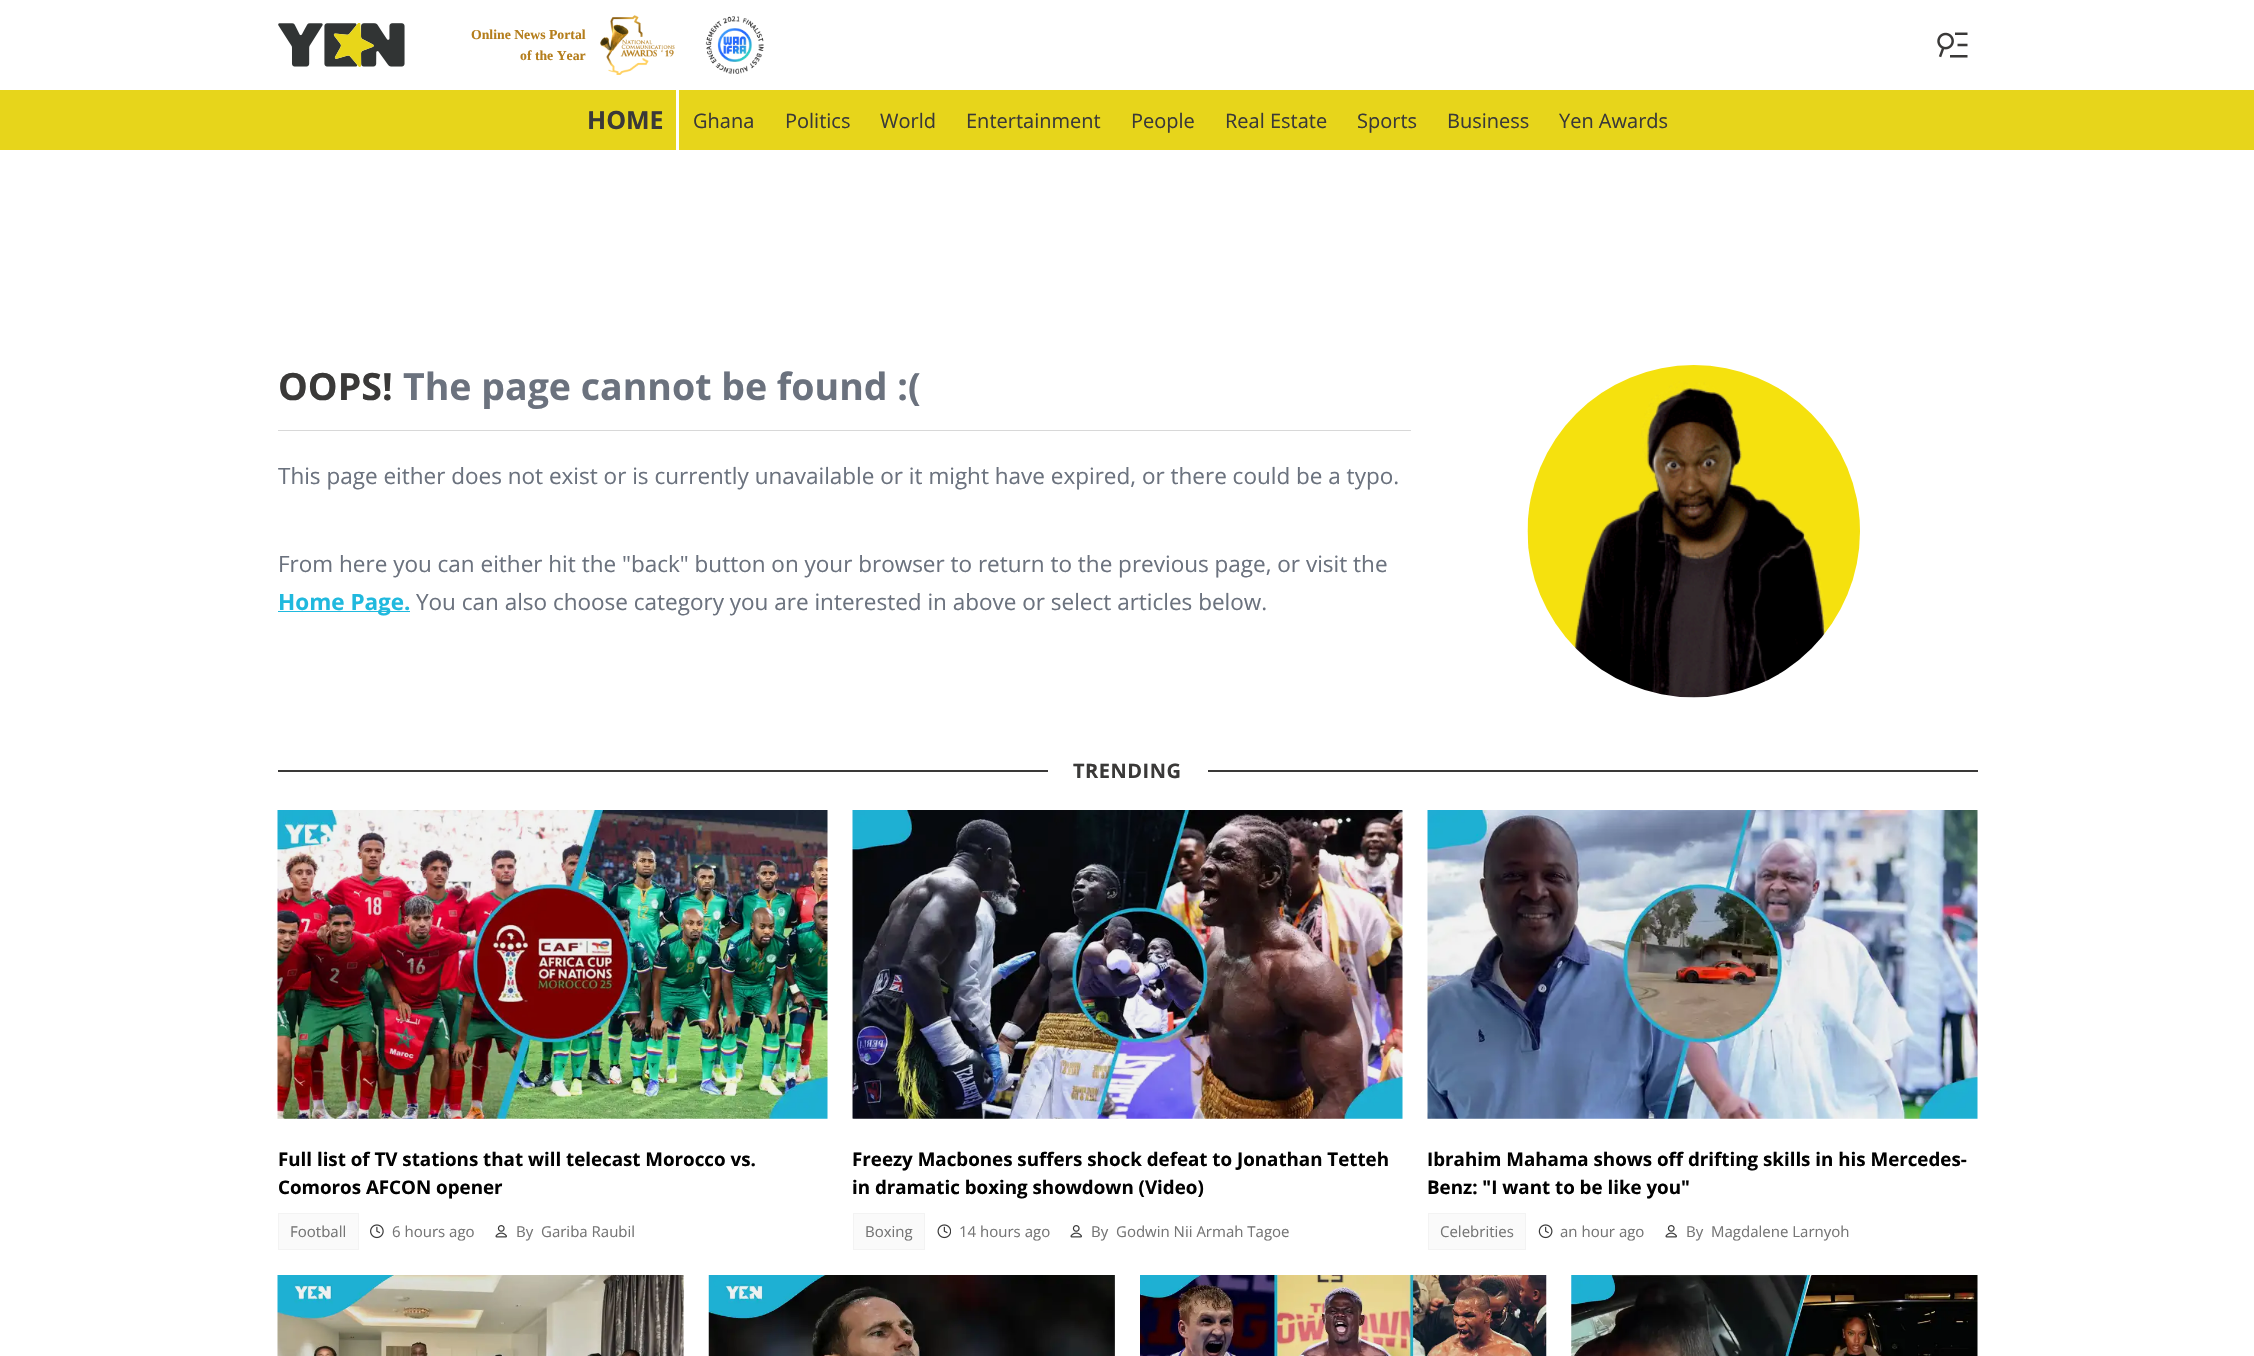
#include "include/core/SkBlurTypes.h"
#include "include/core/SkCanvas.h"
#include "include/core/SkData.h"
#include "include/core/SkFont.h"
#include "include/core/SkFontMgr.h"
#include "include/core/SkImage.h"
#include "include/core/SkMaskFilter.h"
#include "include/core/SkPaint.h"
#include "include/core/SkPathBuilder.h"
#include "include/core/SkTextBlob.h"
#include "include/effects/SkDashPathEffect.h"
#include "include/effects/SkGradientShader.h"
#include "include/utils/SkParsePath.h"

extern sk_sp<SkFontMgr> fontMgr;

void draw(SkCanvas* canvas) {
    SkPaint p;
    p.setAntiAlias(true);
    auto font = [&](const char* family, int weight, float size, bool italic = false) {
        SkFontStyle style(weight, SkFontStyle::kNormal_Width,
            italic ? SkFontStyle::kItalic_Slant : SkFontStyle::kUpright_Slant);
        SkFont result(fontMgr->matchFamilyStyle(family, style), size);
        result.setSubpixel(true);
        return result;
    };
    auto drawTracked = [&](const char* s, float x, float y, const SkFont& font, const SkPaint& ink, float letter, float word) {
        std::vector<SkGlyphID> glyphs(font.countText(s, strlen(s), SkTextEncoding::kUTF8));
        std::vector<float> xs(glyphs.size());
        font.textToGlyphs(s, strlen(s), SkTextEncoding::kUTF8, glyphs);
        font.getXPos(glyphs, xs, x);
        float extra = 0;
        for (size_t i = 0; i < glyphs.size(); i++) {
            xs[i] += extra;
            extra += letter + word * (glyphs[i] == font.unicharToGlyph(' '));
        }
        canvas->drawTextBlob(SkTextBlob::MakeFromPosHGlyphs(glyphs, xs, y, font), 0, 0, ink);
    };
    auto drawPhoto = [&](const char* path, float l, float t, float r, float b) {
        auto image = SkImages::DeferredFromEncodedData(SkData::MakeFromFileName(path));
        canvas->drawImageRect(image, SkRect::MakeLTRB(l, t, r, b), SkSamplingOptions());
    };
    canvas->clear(0xFFFFFFFF);
    drawPhoto("media/1.png", 278, 23, 405, 67);
    auto font1 = font("Liberation Serif", 700, 13.75f);
    p.setColor(0xFFB57E1C);
    canvas->drawString("Online News Portal", 471, 39, font1, p);
    canvas->drawString("of the Year", 520, 60, font1, p);
    drawPhoto("media/2.png", 600, 15, 675, 75);
    drawPhoto("media/3.png", 705, 16, 764, 74);
    drawPhoto("media/4.png", 1937, 32, 1968, 58);
    p.setColor(0xFFE7D51B);
    canvas->drawRect(SkRect::MakeLTRB(0, 90, 2254, 150), p);
    auto font2 = font("Open Sans", 700, 25);
    p.setColor(0xFF3A3938);
    canvas->drawString("HOME", 587, 129, font2, p);
    p.setColor(0xFFFFFFFF);
    canvas->drawRect(SkRect::MakeLTRB(676, 90, 679, 150), p);
    auto font3 = font("Open Sans", 400, 20);
    p.setColor(0xFF3A3938);
    {
        const struct { const char* s; float x, y; } items[] = {
            {"Ghana", 693, 128},
            {"Politics", 785, 128},
            {"World", 880, 128},
            {"Entertainment", 966, 128},
            {"People", 1131, 128},
            {"Real Estate", 1225, 128},
            {"Sports", 1357, 128},
            {"Business", 1447, 128},
            {"Yen Awards", 1559, 128},
        };
        for (auto [s, x, y] : items) {
            canvas->drawString(s, x, y, font3, p);
        }
    }
    p.setColor(0xFFD8D8D8);
    canvas->drawRect(SkRect::MakeLTRB(278, 430, 1411, 431), p);
    auto font4 = font("Open Sans", 700, 37.5f);
    p.setColor(0xFF3A3938);
    canvas->drawString("OOPS!", 278, 400, font4, p);
    p.setColor(0xFF6B727E);
    canvas->drawString("The page cannot be found :(", 403, 400, font4, p);
    auto font5 = font("Open Sans", 400, 22.5f);
    canvas->drawString("This page either does not exist or is currently unavailable or it might have expired, or there could be a typo.", 278, 484, font5, p);
    canvas->drawString("From here you can either hit the \"back\" button on your browser to return to the previous page, or visit the", 278, 572, font5, p);
    p.setColor(0xFF20B9DE);
    canvas->drawRect(SkRect::MakeLTRB(278, 611, 410, 612), p);
    auto font6 = font("Open Sans", 700, 22.5f);
    canvas->drawString("Home Page.", 278, 610, font6, p);
    p.setColor(0xFF6B727E);
    canvas->drawString("You can also choose category you are interested in above or select articles below.", 416, 610, font5, p);
    drawPhoto("media/5.png", 1527, 365, 1860, 698);
    p.setColor(0xFF3A3938);
    canvas->drawRect(SkRect::MakeLTRB(278, 770, 1978, 772), p);
    p.setColor(0xFFFFFFFF);
    canvas->drawRect(SkRect::MakeLTRB(1048, 770, 1208, 772), p);
    auto font7 = font("Open Sans", 700, 20);
    p.setColor(0xFF3A3938);
    drawTracked("TRENDING", 1073, 778, font7, p, 0.5f, 0);
    drawPhoto("media/6.png", 277, 810, 828, 1119);
    auto font8 = font("Open Sans", 700, 18.75f);
    p.setColor(0xFF010101);
    canvas->drawString("Full list of TV stations that will telecast Morocco vs.", 278, 1166, font8, p);
    canvas->drawString("Comoros AFCON opener", 278, 1194, font8, p);
    p.setColor(0xFFFAFAFA);
    canvas->drawRect(SkRect::MakeLTRB(278.5f, 1213.5f, 358.5f, 1249.5f), p);
    p.setStyle(SkPaint::kStroke_Style);
    p.setStrokeWidth(1);
    p.setColor(0xFFF3F3F3);
    canvas->drawRect(SkRect::MakeLTRB(278.5f, 1213.5f, 358.5f, 1249.5f), p);
    auto font9 = font("Open Sans", 400, 15);
    p.setStyle(SkPaint::kFill_Style);
    p.setColor(0xFF757575);
    canvas->drawString("Football", 290, 1237, font9, p);
    drawPhoto("media/7.png", 370, 1224, 384, 1239);
    canvas->drawString("6 hours ago", 392, 1237, font9, p);
    drawPhoto("media/8.png", 495, 1225, 507, 1238);
    canvas->drawString("By", 516, 1237, font9, p);
    canvas->drawString("Gariba Raubil", 541, 1237, font9, p);
    drawPhoto("media/9.png", 852, 810, 1403, 1119);
    p.setColor(0xFF010101);
    canvas->drawString("Freezy Macbones suffers shock defeat to Jonathan Tetteh", 852, 1166, font8, p);
    canvas->drawString("in dramatic boxing showdown (Video)", 852, 1194, font8, p);
    p.setColor(0xFFFAFAFA);
    canvas->drawRect(SkRect::MakeLTRB(853.5f, 1213.5f, 924.5f, 1249.5f), p);
    p.setStyle(SkPaint::kStroke_Style);
    p.setColor(0xFFF3F3F3);
    canvas->drawRect(SkRect::MakeLTRB(853.5f, 1213.5f, 924.5f, 1249.5f), p);
    p.setStyle(SkPaint::kFill_Style);
    p.setColor(0xFF757575);
    canvas->drawString("Boxing", 865, 1237, font9, p);
    drawPhoto("media/10.png", 937, 1224, 951, 1239);
    canvas->drawString("14 hours ago", 959, 1237, font9, p);
    drawPhoto("media/8.png", 1070, 1225, 1082, 1238);
    canvas->drawString("By", 1091, 1237, font9, p);
    canvas->drawString("Godwin Nii Armah Tagoe", 1116, 1237, font9, p);
    drawPhoto("media/11.png", 1427, 810, 1978, 1119);
    p.setColor(0xFF010101);
    canvas->drawString("Ibrahim Mahama shows off drifting skills in his Mercedes-", 1427, 1166, font8, p);
    canvas->drawString("Benz: \"I want to be like you\"", 1427, 1194, font8, p);
    p.setColor(0xFFFAFAFA);
    canvas->drawRect(SkRect::MakeLTRB(1428.5f, 1213.5f, 1525.5f, 1249.5f), p);
    p.setStyle(SkPaint::kStroke_Style);
    p.setColor(0xFFF3F3F3);
    canvas->drawRect(SkRect::MakeLTRB(1428.5f, 1213.5f, 1525.5f, 1249.5f), p);
    p.setStyle(SkPaint::kFill_Style);
    p.setColor(0xFF757575);
    canvas->drawString("Celebrities", 1440, 1237, font9, p);
    drawPhoto("media/12.png", 1538, 1224, 1553, 1239);
    canvas->drawString("an hour ago", 1560, 1237, font9, p);
    drawPhoto("media/8.png", 1665, 1225, 1677, 1238);
    canvas->drawString("By", 1686, 1237, font9, p);
    canvas->drawString("Magdalene Larnyoh", 1711, 1237, font9, p);
    drawPhoto("media/13.png", 277, 1275, 684, 1356);
    drawPhoto("media/14.png", 708, 1275, 1115, 1356);
    drawPhoto("media/15.png", 1140, 1275, 1547, 1356);
    drawPhoto("media/16.png", 1571, 1275, 1978, 1356);
}
